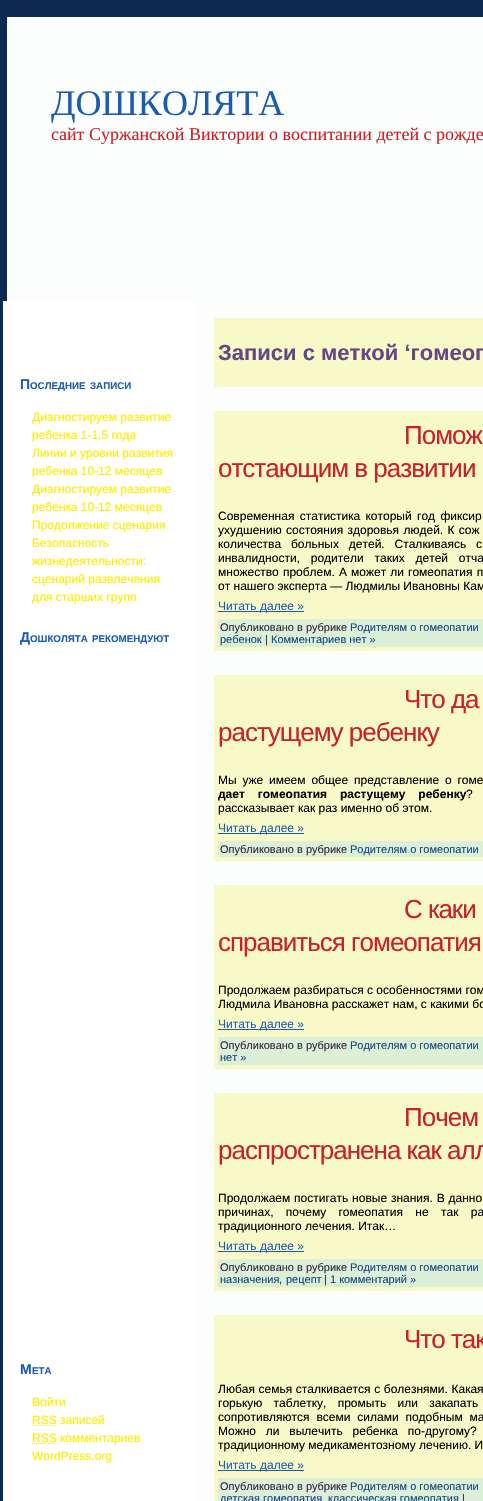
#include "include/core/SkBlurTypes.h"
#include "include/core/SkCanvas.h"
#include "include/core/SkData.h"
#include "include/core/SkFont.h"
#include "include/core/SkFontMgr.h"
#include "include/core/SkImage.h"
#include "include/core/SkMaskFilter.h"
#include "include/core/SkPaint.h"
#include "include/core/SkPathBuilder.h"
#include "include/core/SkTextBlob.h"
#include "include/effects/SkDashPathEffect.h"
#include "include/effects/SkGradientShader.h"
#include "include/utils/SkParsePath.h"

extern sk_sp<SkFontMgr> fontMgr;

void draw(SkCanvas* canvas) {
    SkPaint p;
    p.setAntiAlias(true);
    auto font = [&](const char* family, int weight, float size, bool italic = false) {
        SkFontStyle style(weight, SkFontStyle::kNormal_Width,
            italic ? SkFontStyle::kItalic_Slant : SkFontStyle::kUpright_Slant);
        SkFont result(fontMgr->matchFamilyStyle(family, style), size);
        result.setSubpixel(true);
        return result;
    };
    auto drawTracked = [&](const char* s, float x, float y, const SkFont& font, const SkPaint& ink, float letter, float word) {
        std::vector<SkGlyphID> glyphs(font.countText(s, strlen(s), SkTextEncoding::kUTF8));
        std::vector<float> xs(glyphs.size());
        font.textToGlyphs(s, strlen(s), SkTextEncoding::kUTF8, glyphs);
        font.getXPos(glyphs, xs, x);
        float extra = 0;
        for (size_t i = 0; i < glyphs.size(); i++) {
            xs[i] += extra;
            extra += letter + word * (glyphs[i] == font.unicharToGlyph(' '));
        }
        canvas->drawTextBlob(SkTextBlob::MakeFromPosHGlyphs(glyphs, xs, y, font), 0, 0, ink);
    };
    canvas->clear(0xFF0C294F);
    p.setColor(0xFFFCFDFD);
    canvas->drawRect(SkRect::MakeLTRB(7, 17, 483, 1501), p);
    auto font1 = font("Liberation Serif", 400, 36);
    p.setColor(0xFF1C5CB0);
    canvas->drawString("ДОШКОЛЯТА", 51, 115, font1, p);
    auto font2 = font("Liberation Serif", 400, 18);
    p.setColor(0xFFCA2124);
    canvas->drawString("сайт Суржанской Виктории о воспитании детей с рожде", 51, 140, font2, p);
    p.setColor(0xFFFFFFFF);
    canvas->drawRect(SkRect::MakeLTRB(3, 301, 197, 1501), p);
    auto font3 = font("Liberation Sans", 700, 14);
    p.setColor(0xFF1C5CB0);
    canvas->drawString("П", 20, 389, font3, p);
    auto font4 = font("Liberation Sans", 700, 9.75f);
    canvas->drawString("ОСЛЕДНИЕ", 30, 389, font4, p);
    canvas->drawString("ЗАПИСИ", 90, 389, font4, p);
    auto font5 = font("Liberation Sans", 400, 12);
    p.setColor(0xFFFEED01);
    {
        const struct { const char* s; float x, y; } items[] = {
            {"Диагностируем развитие", 32, 421},
            {"ребенка 1-1,5 года", 32, 439},
            {"Линии и уровни развития", 32, 457},
            {"ребенка 10-12 месяцев", 32, 475},
            {"Диагностируем развитие", 32, 493},
            {"ребенка 10-12 месяцев", 32, 511},
            {"Продолжение сценария", 32, 529},
            {"Безопасность", 32, 547},
            {"жизнедеятельности:", 32, 565},
            {"сценарий развлечения", 32, 583},
            {"для старших групп", 32, 601},
        };
        for (auto [s, x, y] : items) {
            canvas->drawString(s, x, y, font5, p);
        }
    }
    p.setColor(0xFF1C5CB0);
    canvas->drawString("Д", 20, 642, font3, p);
    canvas->drawString("ОШКОЛЯТА", 30, 642, font4, p);
    canvas->drawString("РЕКОМЕНДУЮТ", 92, 642, font4, p);
    canvas->drawString("М", 20, 1374, font3, p);
    canvas->drawString("ЕТА", 32, 1374, font4, p);
    p.setColor(0xFFFEED01);
    canvas->drawString("Войти", 32, 1406, font5, p);
    canvas->drawString("RSS записей", 32, 1424, font5, p);
    p.setStyle(SkPaint::kStroke_Style);
    p.setStrokeWidth(1);
    p.setPathEffect(SkDashPathEffect::Make({{1, 1}}, 0));
    canvas->drawPath(SkPathBuilder().moveTo(32, 1425.5f).lineTo(56.5f, 1425.5f).detach(), p);
    p.setPathEffect(nullptr);
    p.setPathEffect(SkDashPathEffect::Make({{1, 1}}, 0));
    canvas->drawPath(SkPathBuilder().moveTo(32, 1443.5f).lineTo(56.5f, 1443.5f).detach(), p);
    p.setPathEffect(nullptr);
    p.setStyle(SkPaint::kFill_Style);
    canvas->drawString("RSS комментариев", 32, 1442, font5, p);
    canvas->drawString("WordPress.org", 32, 1460, font5, p);
    p.setColor(0xFFF8F9C8);
    canvas->drawRect(SkRect::MakeLTRB(214, 318, 483, 387), p);
    auto font6 = font("Liberation Sans", 700, 22);
    p.setColor(0xFF634884);
    canvas->drawString("Записи с меткой ‘гомеоп", 218, 360, font6, p);
    p.setColor(0xFFF8F9C8);
    canvas->drawRect(SkRect::MakeLTRB(214, 411, 483, 651), p);
    auto font7 = font("Liberation Sans", 400, 26);
    p.setColor(0xFFCA2124);
    drawTracked("Помож", 404, 444, font7, p, -1, 0);
    drawTracked("отстающим в развитии", 218, 477, font7, p, -1, 0);
    p.setColor(0xFF000000);
    drawTracked("Современная статистика который год фиксир", 218, 520, font5, p, 0, 2);
    drawTracked("ухудшению состояния здоровья людей. К сож", 218, 534, font5, p, 0, 1);
    drawTracked("количества больных детей. Сталкиваясь с", 218, 548, font5, p, 0, 6.5f);
    drawTracked("инвалидности, родители таких детей отча", 218, 562, font5, p, 0, 7.5f);
    drawTracked("множество проблем. А может ли гомеопатия п", 218, 576, font5, p, 0, 0.75f);
    canvas->drawString("от нашего эксперта — Людмилы Ивановны Кам", 218, 590, font5, p);
    p.setColor(0xFF1C5CB0);
    canvas->drawRect(SkRect::MakeLTRB(218, 611, 304, 612), p);
    canvas->drawString("Читать далее »", 218, 610, font5, p);
    p.setColor(0xFFDCEFD7);
    canvas->drawRect(SkRect::MakeLTRB(218, 619, 483, 647), p);
    auto font8 = font("Liberation Sans", 400, 11);
    p.setColor(0xFF322442);
    canvas->drawString("Опубликовано в рубрике", 220, 631, font8, p);
    p.setColor(0xFF154584);
    canvas->drawString("Родителям о гомеопатии", 350, 631, font8, p);
    canvas->drawString("ребенок", 220, 643, font8, p);
    p.setColor(0xFF322442);
    canvas->drawString("|", 265, 643, font8, p);
    p.setColor(0xFF154584);
    canvas->drawString("Комментариев нет »", 271, 643, font8, p);
    p.setColor(0xFFF8F9C8);
    canvas->drawRect(SkRect::MakeLTRB(214, 675, 483, 861), p);
    p.setColor(0xFFCA2124);
    drawTracked("Что да", 404, 708, font7, p, -1, 0);
    drawTracked("растущему ребенку", 218, 741, font7, p, -1, 0);
    p.setColor(0xFF000000);
    drawTracked("Мы уже имеем общее представление о гоме", 218, 784, font5, p, 0, 2.5f);
    auto font9 = font("Liberation Sans", 700, 12);
    drawTracked("дает гомеопатия растущему ребенку", 218, 798, font9, p, 0, 9.5f);
    drawTracked("?", 466, 798, font5, p, 0, 9.5f);
    canvas->drawString("рассказывает как раз именно об этом.", 218, 812, font5, p);
    p.setColor(0xFF1C5CB0);
    canvas->drawRect(SkRect::MakeLTRB(218, 833, 304, 834), p);
    canvas->drawString("Читать далее »", 218, 832, font5, p);
    p.setColor(0xFFDCEFD7);
    canvas->drawRect(SkRect::MakeLTRB(218, 841, 483, 857), p);
    p.setColor(0xFF322442);
    canvas->drawString("Опубликовано в рубрике", 220, 853, font8, p);
    p.setColor(0xFF154584);
    canvas->drawString("Родителям о гомеопатии", 350, 853, font8, p);
    p.setColor(0xFFF8F9C8);
    canvas->drawRect(SkRect::MakeLTRB(214, 885, 483, 1069), p);
    p.setColor(0xFFCA2124);
    drawTracked("С каки", 404, 918, font7, p, -1, 0);
    drawTracked("справиться гомеопатия", 218, 951, font7, p, -1, 0);
    p.setColor(0xFF000000);
    canvas->drawString("Продолжаем разбираться с особенностями гом", 218, 994, font5, p);
    canvas->drawString("Людмила Ивановна расскажет нам, с какими бо", 218, 1008, font5, p);
    p.setColor(0xFF1C5CB0);
    canvas->drawRect(SkRect::MakeLTRB(218, 1029, 304, 1030), p);
    canvas->drawString("Читать далее »", 218, 1028, font5, p);
    p.setColor(0xFFDCEFD7);
    canvas->drawRect(SkRect::MakeLTRB(218, 1037, 483, 1065), p);
    p.setColor(0xFF322442);
    canvas->drawString("Опубликовано в рубрике", 220, 1049, font8, p);
    p.setColor(0xFF154584);
    canvas->drawString("Родителям о гомеопатии", 350, 1049, font8, p);
    canvas->drawString("нет »", 220, 1061, font8, p);
    p.setColor(0xFFF8F9C8);
    canvas->drawRect(SkRect::MakeLTRB(214, 1093, 483, 1291), p);
    p.setColor(0xFFCA2124);
    drawTracked("Почем", 404, 1126, font7, p, -1, 0);
    drawTracked("распространена как алл", 218, 1159, font7, p, -1, 0);
    p.setColor(0xFF000000);
    drawTracked("Продолжаем постигать новые знания. В данно", 218, 1202, font5, p, 0, 0.5f);
    drawTracked("причинах, почему гомеопатия не так ра", 218, 1216, font5, p, 0, 9);
    canvas->drawString("традиционного лечения. Итак…", 218, 1230, font5, p);
    p.setColor(0xFF1C5CB0);
    canvas->drawRect(SkRect::MakeLTRB(218, 1251, 304, 1252), p);
    canvas->drawString("Читать далее »", 218, 1250, font5, p);
    p.setColor(0xFFDCEFD7);
    canvas->drawRect(SkRect::MakeLTRB(218, 1259, 483, 1287), p);
    p.setColor(0xFF322442);
    canvas->drawString("Опубликовано в рубрике", 220, 1271, font8, p);
    p.setColor(0xFF154584);
    canvas->drawString("Родителям о гомеопатии", 350, 1271, font8, p);
    canvas->drawString("назначения", 220, 1283, font8, p);
    p.setColor(0xFF322442);
    canvas->drawString(",", 279, 1283, font8, p);
    p.setColor(0xFF154584);
    canvas->drawString("рецепт", 286, 1283, font8, p);
    p.setColor(0xFF322442);
    canvas->drawString("|", 324, 1283, font8, p);
    p.setColor(0xFF154584);
    canvas->drawString("1 комментарий »", 330, 1283, font8, p);
    p.setColor(0xFFF8F9C8);
    canvas->drawRect(SkRect::MakeLTRB(214, 1315, 483, 1501), p);
    p.setColor(0xFFCA2124);
    drawTracked("Что так", 404, 1348, font7, p, -1, 0);
    p.setColor(0xFF000000);
    drawTracked("Любая семья сталкивается с болезнями. Какая", 218, 1393, font5, p, 0, 0.25f);
    drawTracked("горькую таблетку, промыть или закапать", 218, 1407, font5, p, 0, 8);
    drawTracked("сопротивляются всеми силами подобным ма", 218, 1421, font5, p, 0, 3.5f);
    drawTracked("Можно ли вылечить ребенка по-другому?", 218, 1435, font5, p, 0, 6.5f);
    canvas->drawString("традиционному медикаментозному лечению. И", 218, 1449, font5, p);
    p.setColor(0xFF1C5CB0);
    canvas->drawRect(SkRect::MakeLTRB(218, 1470, 304, 1471), p);
    canvas->drawString("Читать далее »", 218, 1469, font5, p);
    p.setColor(0xFFDCEFD7);
    canvas->drawRect(SkRect::MakeLTRB(218, 1478, 483, 1501), p);
    p.setColor(0xFF322442);
    canvas->drawString("Опубликовано в рубрике", 220, 1490, font8, p);
    p.setColor(0xFF154584);
    {
        const struct { const char* s; float x, y; } items[] = {
            {"Родителям о гомеопатии", 350, 1490},
            {"детская гомеопатия", 220, 1502},
            {"классическая гомеопатия", 328, 1502},
        };
        for (auto [s, x, y] : items) {
            canvas->drawString(s, x, y, font8, p);
        }
    }
    p.setColor(0xFF322442);
    canvas->drawString("|", 462, 1502, font8, p);
}
